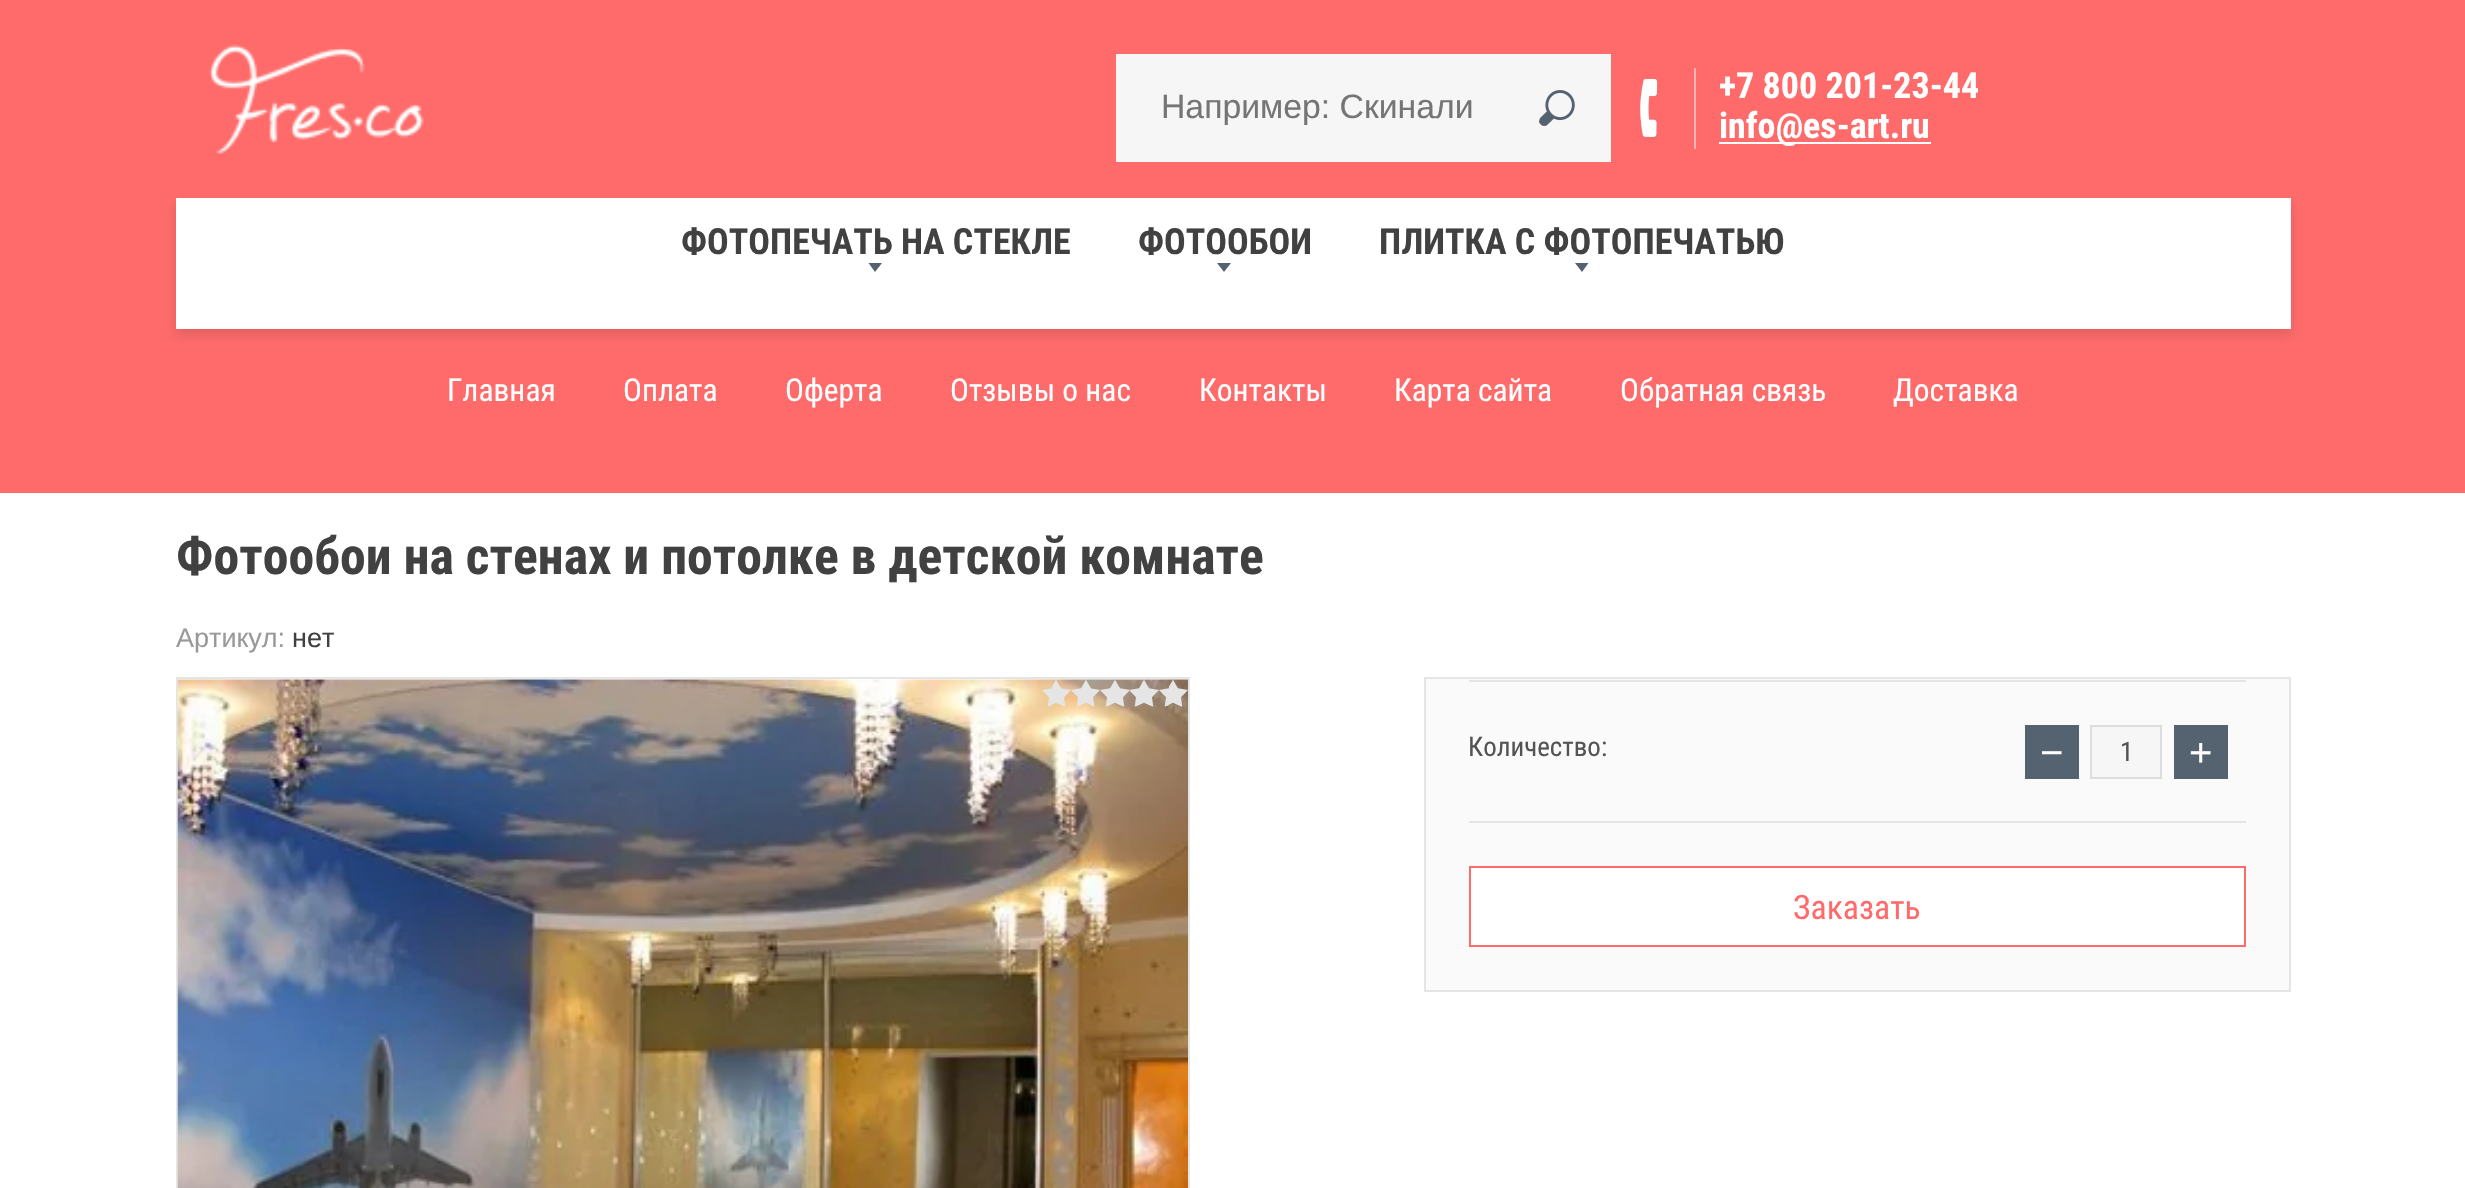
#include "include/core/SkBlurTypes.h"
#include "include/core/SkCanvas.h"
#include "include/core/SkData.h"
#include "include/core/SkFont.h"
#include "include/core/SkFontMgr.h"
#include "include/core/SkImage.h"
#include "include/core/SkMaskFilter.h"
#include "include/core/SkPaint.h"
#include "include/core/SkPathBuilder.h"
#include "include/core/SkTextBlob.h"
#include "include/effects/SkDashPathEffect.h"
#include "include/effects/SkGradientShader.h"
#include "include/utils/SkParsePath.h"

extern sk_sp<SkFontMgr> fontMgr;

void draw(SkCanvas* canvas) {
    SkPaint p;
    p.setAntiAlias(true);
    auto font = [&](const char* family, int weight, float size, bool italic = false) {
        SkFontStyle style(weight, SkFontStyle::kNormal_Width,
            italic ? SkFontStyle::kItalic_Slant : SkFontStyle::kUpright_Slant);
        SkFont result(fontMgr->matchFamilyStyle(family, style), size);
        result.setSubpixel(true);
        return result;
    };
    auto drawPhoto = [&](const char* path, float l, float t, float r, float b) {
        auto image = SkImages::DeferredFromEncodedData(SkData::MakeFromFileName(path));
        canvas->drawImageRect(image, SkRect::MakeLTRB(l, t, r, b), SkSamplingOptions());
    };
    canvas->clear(0xFFFFFFFF);
    p.setColor(0xFFFF6B6B);
    canvas->drawRect(SkRect::MakeLTRB(0, 0, 2465, 493), p);
    drawPhoto("media/1.png", 209, 44, 424, 155);
    p.setColor(0xFFF6F6F6);
    canvas->drawRect(SkRect::MakeLTRB(1116, 54, 1611, 162), p);
    auto font1 = font("Liberation Sans", 400, 33.75f);
    p.setColor(0xFF757575);
    canvas->drawString("Например: Скинали", 1161, 118, font1, p);
    drawPhoto("media/2.png", 1539, 90, 1575, 126);
    p.setColor(0xFFFDB3B3);
    canvas->drawRect(SkRect::MakeLTRB(1694, 68, 1696, 149), p);
    drawPhoto("media/3.png", 1640, 79, 1658, 137);
    auto font2 = font("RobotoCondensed", 700, 36);
    p.setColor(0xFFFFFFFF);
    canvas->drawString("+7 800 201-23-44", 1719, 98, font2, p);
    canvas->drawRect(SkRect::MakeLTRB(1719, 142, 1931, 144), p);
    canvas->drawString("info@es-art.ru", 1719, 138, font2, p);
    p.setColor(0x1C000000);
    p.setMaskFilter(SkMaskFilter::MakeBlur(kNormal_SkBlurStyle, 5.5f));
    canvas->drawRect(SkRect::MakeLTRB(176, 205, 2291, 335), p);
    p.setMaskFilter(nullptr);
    p.setColor(0xFFFFFFFF);
    canvas->drawRect(SkRect::MakeLTRB(176, 198, 2291, 329), p);
    p.setColor(0xFF414141);
    canvas->drawString("ФОТОПЕЧАТЬ НА СТЕКЛЕ", 681, 254, font2, p);
    p.setColor(0xFF556270);
    canvas->drawPath(SkPathBuilder().moveTo(868.5f, 263).lineTo(882, 263).lineTo(875, 272).close().detach(), p);
    p.setColor(0xFF414141);
    canvas->drawString("ФОТООБОИ", 1138, 254, font2, p);
    p.setColor(0xFF556270);
    canvas->drawPath(SkPathBuilder().moveTo(1217, 263).lineTo(1231, 263).lineTo(1224, 272).close().detach(), p);
    p.setColor(0xFF414141);
    canvas->drawString("ПЛИТКА С ФОТОПЕЧАТЬЮ", 1379, 254, font2, p);
    p.setColor(0xFF556270);
    canvas->drawPath(SkPathBuilder().moveTo(1575, 263).lineTo(1588.5f, 263).lineTo(1582, 272).close().detach(), p);
    auto font3 = font("RobotoCondensed", 400, 31.5f);
    p.setColor(0xFFFFFFFF);
    {
        const struct { const char* s; float x, y; } items[] = {
            {"Главная", 447, 401},
            {"Оплата", 623, 401},
            {"Оферта", 785, 401},
            {"Отзывы о нас", 950, 401},
            {"Контакты", 1199, 401},
            {"Карта сайта", 1394, 401},
            {"Обратная связь", 1620, 401},
            {"Доставка", 1893, 401},
        };
        for (auto [s, x, y] : items) {
            canvas->drawString(s, x, y, font3, p);
        }
    }
    auto font4 = font("RobotoCondensed", 700, 51.75f);
    p.setColor(0xFF414141);
    canvas->drawString("Фотообои на стенах и потолке в детской комнате", 176, 574, font4, p);
    auto font5 = font("Liberation Sans", 400, 27);
    p.setColor(0xFF999999);
    canvas->drawString("Артикул:", 176, 647, font5, p);
    p.setColor(0xFF414141);
    canvas->drawString("нет", 292, 647, font5, p);
    p.setStyle(SkPaint::kStroke_Style);
    p.setStrokeWidth(2);
    p.setColor(0xFFE5E5E5);
    canvas->drawRect(SkRect::MakeLTRB(177, 678, 1189, 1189), p);
    drawPhoto("media/4.png", 177, 679, 1188, 1188);
    drawPhoto("media/5.png", 1041, 680, 1188, 707);
    p.setStyle(SkPaint::kFill_Style);
    p.setColor(0xFFFAFAFA);
    canvas->drawRect(SkRect::MakeLTRB(1425, 678, 2290, 991), p);
    p.setStyle(SkPaint::kStroke_Style);
    p.setColor(0xFFE5E5E5);
    canvas->drawRect(SkRect::MakeLTRB(1425, 678, 2290, 991), p);
    p.setStyle(SkPaint::kFill_Style);
    canvas->drawRect(SkRect::MakeLTRB(1469, 680, 2246, 682), p);
    auto font6 = font("RobotoCondensed", 400, 27);
    p.setColor(0xFF545454);
    canvas->drawString("Количество:", 1468, 756, font6, p);
    p.setColor(0xFF556270);
    canvas->drawRect(SkRect::MakeLTRB(2025, 725, 2079, 779), p);
    auto font7 = font("Liberation Sans", 400, 40);
    p.setColor(0xFFFFFFFF);
    canvas->drawString("−", 2040, 766, font7, p);
    p.setColor(0xFFF6F6F6);
    canvas->drawRect(SkRect::MakeLTRB(2091, 726, 2161, 778), p);
    p.setStyle(SkPaint::kStroke_Style);
    p.setColor(0xFFDDDDDD);
    canvas->drawRect(SkRect::MakeLTRB(2091, 726, 2161, 778), p);
    p.setStyle(SkPaint::kFill_Style);
    p.setColor(0xFF545454);
    canvas->drawString("1", 2120, 761, font6, p);
    p.setColor(0xFF556270);
    canvas->drawRect(SkRect::MakeLTRB(2174, 725, 2228, 779), p);
    p.setColor(0xFFFFFFFF);
    canvas->drawString("+", 2189, 766, font7, p);
    p.setColor(0xFFE5E5E5);
    canvas->drawRect(SkRect::MakeLTRB(1469, 821, 2246, 823), p);
    p.setColor(0xFFFFFFFF);
    canvas->drawRect(SkRect::MakeLTRB(1470, 867, 2245, 946), p);
    p.setStyle(SkPaint::kStroke_Style);
    p.setColor(0xFFFF6B6B);
    canvas->drawRect(SkRect::MakeLTRB(1470, 867, 2245, 946), p);
    auto font8 = font("RobotoCondensed", 400, 33.75f);
    p.setStyle(SkPaint::kFill_Style);
    canvas->drawString("Заказать", 1793, 919, font8, p);
}
